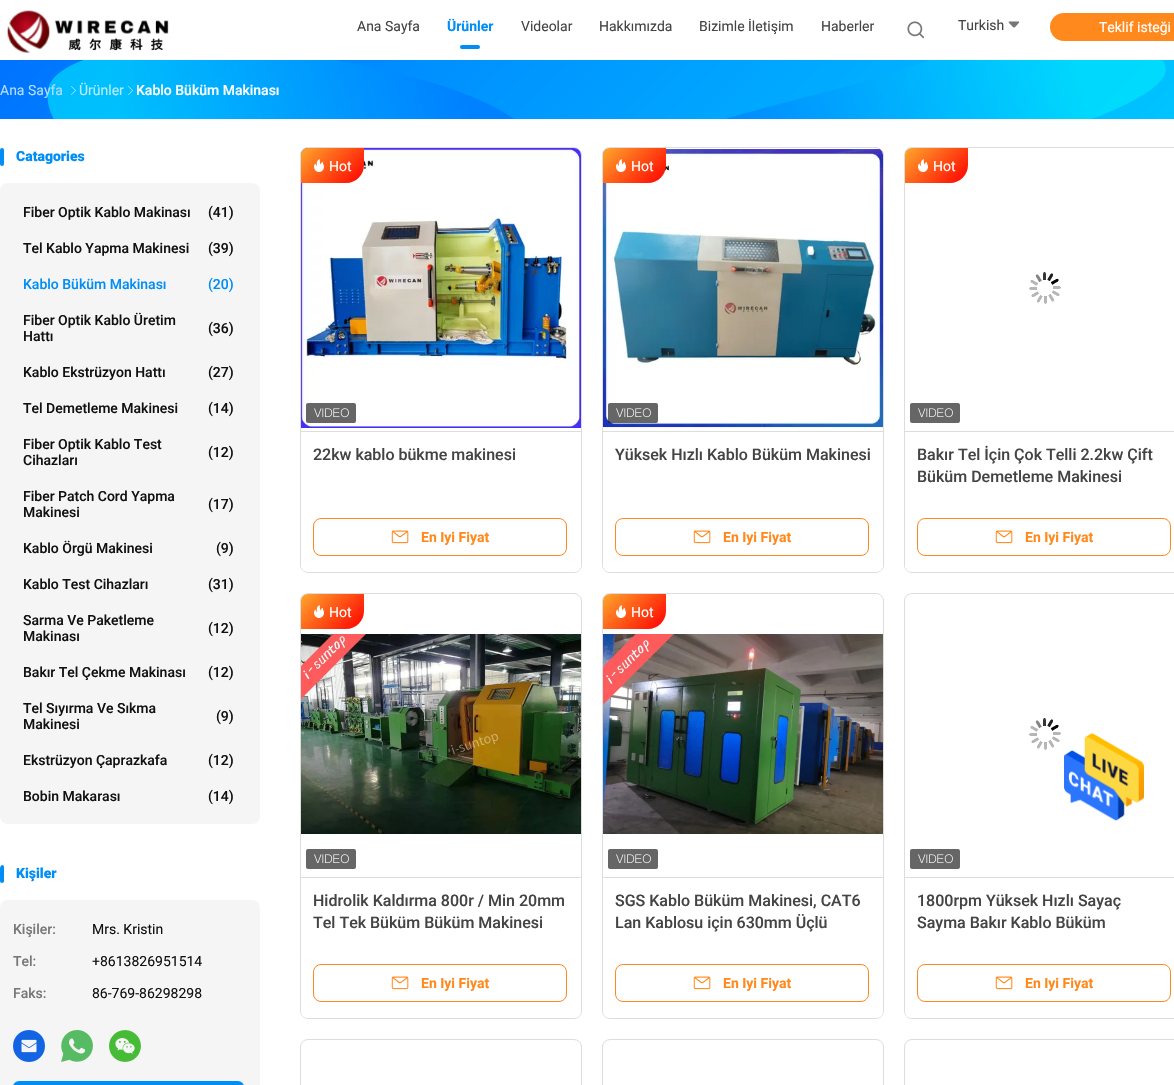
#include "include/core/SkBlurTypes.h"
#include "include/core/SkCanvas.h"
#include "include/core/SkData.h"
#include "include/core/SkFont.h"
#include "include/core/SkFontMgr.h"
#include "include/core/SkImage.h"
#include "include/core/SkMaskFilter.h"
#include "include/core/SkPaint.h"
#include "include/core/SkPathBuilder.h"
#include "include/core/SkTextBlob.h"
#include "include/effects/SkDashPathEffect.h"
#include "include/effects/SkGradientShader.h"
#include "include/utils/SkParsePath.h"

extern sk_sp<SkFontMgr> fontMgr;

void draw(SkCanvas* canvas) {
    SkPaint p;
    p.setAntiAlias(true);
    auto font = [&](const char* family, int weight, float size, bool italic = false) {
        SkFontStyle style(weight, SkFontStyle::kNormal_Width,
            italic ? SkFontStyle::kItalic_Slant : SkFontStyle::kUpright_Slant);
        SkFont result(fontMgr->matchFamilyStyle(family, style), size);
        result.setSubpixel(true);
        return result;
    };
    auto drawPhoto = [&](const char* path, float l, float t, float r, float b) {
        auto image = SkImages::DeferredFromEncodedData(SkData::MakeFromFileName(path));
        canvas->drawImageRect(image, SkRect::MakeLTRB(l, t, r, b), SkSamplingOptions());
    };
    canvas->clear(0xFFFFFFFF);
    drawPhoto("media/1.png", 6, 10, 169, 54);
    auto font1 = font("Roboto", 400, 14);
    p.setColor(0xFF444444);
    canvas->drawString("Ana Sayfa", 357, 31, font1, p);
    auto font2 = font("Roboto", 700, 14);
    p.setColor(0xFF008EF6);
    canvas->drawString("Ürünler", 447, 31, font2, p);
    canvas->drawRoundRect(SkRect::MakeLTRB(460, 45, 480, 49), 2, 2, p);
    p.setColor(0xFF444444);
    {
        const struct { const char* s; float x, y; } items[] = {
            {"Videolar", 521, 31},
            {"Hakkımızda", 599, 31},
            {"Bizimle İletişim", 699, 31},
            {"Haberler", 821, 31},
        };
        for (auto [s, x, y] : items) {
            canvas->drawString(s, x, y, font1, p);
        }
    }
    drawPhoto("media/2.png", 907, 21, 925, 39);
    canvas->drawString("Turkish", 958, 30, font1, p);
    drawPhoto("media/3.png", 1008, 21, 1020, 28);
    p.setColor(0xFFFF891C);
    canvas->drawRoundRect(SkRect::MakeLTRB(1050, 13, 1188, 41), 14, 14, p);
    p.setColor(0xFFFFFFFF);
    canvas->drawString("Teklif isteği", 1099, 32, font1, p);
    {
        const SkColor colors[] = {0xFF0073FF, 0xFF00C4FF};
        const float stops[] = {0, 1};
        const SkPoint ends[] = {{279, -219}, {895, 398}};
        p.setShader(SkGradientShader::MakeLinear(ends, colors, stops, 2, SkTileMode::kClamp));
        p.setAlpha(255);
    }
    canvas->drawRect(SkRect::MakeLTRB(0, 60, 1174, 119), p);
    drawPhoto("media/4.png", 47, 60, 514, 119);
    drawPhoto("media/5.png", 726, 60, 1166, 119);
    p.setShader(nullptr);
    p.setColor(0xFFB3DCFF);
    canvas->drawString("Ana Sayfa", 0, 95, font1, p);
    drawPhoto("media/6.png", 71, 86, 76, 95);
    p.setColor(0xFFB3ECFE);
    canvas->drawString("Ürünler", 79, 95, font1, p);
    drawPhoto("media/7.png", 128, 86, 133, 95);
    auto font3 = font("Roboto", 500, 14);
    p.setColor(0xFFFFFFFF);
    canvas->drawString("Kablo Büküm Makinası", 136, 95, font3, p);
    p.setColor(0xFF008EF6);
    canvas->drawRoundRect(SkRect::MakeLTRB(0, 148, 4, 166), 2, 2, p);
    auto font4 = font("Roboto", 900, 14);
    canvas->drawString("Catagories", 16, 161, font4, p);
    p.setColor(0xFFF5F5F5);
    canvas->drawRoundRect(SkRect::MakeLTRB(0, 183, 260, 824), 8, 8, p);
    p.setColor(0xFF111111);
    {
        const struct { const char* s; float x, y; } items[] = {
            {"Fiber Optik Kablo Makinası", 23, 217},
            {"(41)", 208, 217},
            {"Tel Kablo Yapma Makinesi", 23, 253},
            {"(39)", 208, 253},
        };
        for (auto [s, x, y] : items) {
            canvas->drawString(s, x, y, font3, p);
        }
    }
    p.setColor(0xFF008EF6);
    canvas->drawString("Kablo Büküm Makinası", 23, 289, font3, p);
    canvas->drawString("(20)", 208, 289, font3, p);
    p.setColor(0xFF111111);
    {
        const struct { const char* s; float x, y; } items[] = {
            {"Fiber Optik Kablo Üretim", 23, 325},
            {"(36)", 208, 333},
            {"Hattı", 23, 341},
            {"Kablo Ekstrüzyon Hattı", 23, 377},
            {"(27)", 208, 377},
            {"Tel Demetleme Makinesi", 23, 413},
            {"(14)", 208, 413},
            {"Fiber Optik Kablo Test", 23, 449},
            {"(12)", 208, 457},
            {"Cihazları", 23, 465},
            {"Fiber Patch Cord Yapma", 23, 501},
            {"(17)", 208, 509},
            {"Makinesi", 23, 517},
            {"Kablo Örgü Makinesi", 23, 553},
            {"(9)", 216, 553},
            {"Kablo Test Cihazları", 23, 589},
            {"(31)", 208, 589},
            {"Sarma Ve Paketleme", 23, 625},
            {"(12)", 208, 633},
            {"Makinası", 23, 641},
            {"Bakır Tel Çekme Makinası", 23, 677},
            {"(12)", 208, 677},
            {"Tel Sıyırma Ve Sıkma", 23, 713},
            {"(9)", 216, 721},
            {"Makinesi", 23, 729},
            {"Ekstrüzyon Çaprazkafa", 23, 765},
            {"(12)", 208, 765},
            {"Bobin Makarası", 23, 801},
            {"(14)", 208, 801},
        };
        for (auto [s, x, y] : items) {
            canvas->drawString(s, x, y, font3, p);
        }
    }
    canvas->save();
    canvas->clipPath(SkPathBuilder().moveTo(4, 864).lineTo(256, 864).cubicTo(258, 864, 260, 866, 260, 868).lineTo(260, 1133).cubicTo(260, 1135, 258, 1137, 256, 1137).lineTo(4, 1137).cubicTo(2, 1137, 0, 1135, 0, 1133).lineTo(0, 868).cubicTo(0, 866, 2, 864, 4, 864).close().detach(), true);
    p.setColor(0xFF008EF6);
    canvas->drawRoundRect(SkRect::MakeLTRB(0, 865, 4, 883), 2, 2, p);
    canvas->restore();
    canvas->drawString("Kişiler", 16, 878, font4, p);
    p.setColor(0xFFF5F5F5);
    canvas->drawRoundRect(SkRect::MakeLTRB(0, 900, 260, 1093), 8, 8, p);
    p.setColor(0xFF777777);
    canvas->drawString("Kişiler:", 13, 934, font3, p);
    p.setColor(0xFF111111);
    canvas->drawString("Mrs. Kristin", 92, 934, font1, p);
    p.setColor(0xFF777777);
    canvas->drawString("Tel:", 13, 966, font3, p);
    p.setColor(0xFF111111);
    canvas->drawString("+8613826951514", 92, 966, font1, p);
    p.setColor(0xFF777777);
    canvas->drawString("Faks:", 13, 998, font3, p);
    p.setColor(0xFF111111);
    canvas->drawString("86-769-86298298", 92, 998, font1, p);
    drawPhoto("media/8.png", 13, 1030, 45, 1062);
    drawPhoto("media/9.png", 61, 1030, 93, 1062);
    drawPhoto("media/10.png", 109, 1030, 141, 1062);
    p.setColor(0xFF008EF6);
    canvas->drawRoundRect(SkRect::MakeLTRB(13, 1081, 244, 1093), 8, 8, p);
    p.setStyle(SkPaint::kStroke_Style);
    p.setStrokeWidth(1);
    p.setColor(0xFFDDDDDD);
    canvas->drawRoundRect(SkRect::MakeLTRB(300.5f, 147.5f, 581.5f, 572.5f), 7.5f, 7.5f, p);
    drawPhoto("media/11.png", 301, 148, 581, 428);
    p.setStyle(SkPaint::kFill_Style);
    {
        const SkColor colors[] = {0xFFFFA72C, 0xFFFF0000};
        const float stops[] = {0, 1};
        const SkPoint ends[] = {{308, 141}, {357, 190}};
        p.setShader(SkGradientShader::MakeLinear(ends, colors, stops, 2, SkTileMode::kClamp));
        p.setAlpha(255);
    }
    canvas->drawPath(SkPathBuilder().moveTo(308, 148).lineTo(364, 148).lineTo(364, 165).cubicTo(364, 175, 356, 183, 346, 183).lineTo(301, 183).lineTo(301, 155).cubicTo(301, 151, 304, 148, 308, 148).close().detach(), p);
    drawPhoto("media/12.png", 314, 159, 324, 172);
    p.setShader(nullptr);
    p.setColor(0xFFFFFFFF);
    canvas->drawString("Hot", 329, 171, font1, p);
    drawPhoto("media/13.png", 306, 403, 356, 423);
    canvas->drawPath(SkPathBuilder().moveTo(301, 431).lineTo(581, 431).lineTo(581, 565).cubicTo(581, 569, 578, 572, 574, 572).lineTo(308, 572).cubicTo(304, 572, 301, 569, 301, 565).close().detach(), p);
    p.setColor(0xFFDDDDDD);
    canvas->drawRect(SkRect::MakeLTRB(301, 431, 581, 432), p);
    auto font5 = font("Roboto", 500, 16);
    p.setColor(0xFF444444);
    canvas->drawString("22kw kablo bükme makinesi", 313, 460, font5, p);
    p.setStyle(SkPaint::kStroke_Style);
    p.setColor(0xFFFF891C);
    canvas->drawRoundRect(SkRect::MakeLTRB(313.5f, 518.5f, 566.5f, 555.5f), 7.5f, 7.5f, p);
    drawPhoto("media/14.png", 391, 530, 409, 544);
    p.setStyle(SkPaint::kFill_Style);
    canvas->drawString("En Iyi Fiyat", 421, 542, font2, p);
    p.setStyle(SkPaint::kStroke_Style);
    p.setColor(0xFFDDDDDD);
    canvas->drawRoundRect(SkRect::MakeLTRB(602.5f, 147.5f, 883.5f, 572.5f), 7.5f, 7.5f, p);
    drawPhoto("media/15.png", 603, 149, 883, 428);
    p.setStyle(SkPaint::kFill_Style);
    {
        const SkColor colors[] = {0xFFFFA72C, 0xFFFF0000};
        const float stops[] = {0, 1};
        const SkPoint ends[] = {{610, 141}, {659, 190}};
        p.setShader(SkGradientShader::MakeLinear(ends, colors, stops, 2, SkTileMode::kClamp));
        p.setAlpha(255);
    }
    canvas->drawPath(SkPathBuilder().moveTo(610, 148).lineTo(666, 148).lineTo(666, 165).cubicTo(666, 175, 658, 183, 648, 183).lineTo(603, 183).lineTo(603, 155).cubicTo(603, 151, 606, 148, 610, 148).close().detach(), p);
    drawPhoto("media/12.png", 616, 159, 626, 172);
    p.setShader(nullptr);
    p.setColor(0xFFFFFFFF);
    canvas->drawString("Hot", 631, 171, font1, p);
    drawPhoto("media/16.png", 608, 403, 658, 423);
    canvas->drawPath(SkPathBuilder().moveTo(603, 431).lineTo(883, 431).lineTo(883, 565).cubicTo(883, 569, 880, 572, 876, 572).lineTo(610, 572).cubicTo(606, 572, 603, 569, 603, 565).close().detach(), p);
    p.setColor(0xFFDDDDDD);
    canvas->drawRect(SkRect::MakeLTRB(603, 431, 883, 432), p);
    p.setColor(0xFF444444);
    canvas->drawString("Yüksek Hızlı Kablo Büküm Makinesi", 615, 460, font5, p);
    p.setStyle(SkPaint::kStroke_Style);
    p.setColor(0xFFFF891C);
    canvas->drawRoundRect(SkRect::MakeLTRB(615.5f, 518.5f, 868.5f, 555.5f), 7.5f, 7.5f, p);
    drawPhoto("media/14.png", 693, 530, 711, 544);
    p.setStyle(SkPaint::kFill_Style);
    canvas->drawString("En Iyi Fiyat", 723, 542, font2, p);
    p.setStyle(SkPaint::kStroke_Style);
    p.setColor(0xFFDDDDDD);
    canvas->drawRoundRect(SkRect::MakeLTRB(904.5f, 147.5f, 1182.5f, 572.5f), 7.5f, 7.5f, p);
    p.setStyle(SkPaint::kFill_Style);
    {
        const SkColor colors[] = {0xFFFFA72C, 0xFFFF0000};
        const float stops[] = {0, 1};
        const SkPoint ends[] = {{912, 141}, {961, 190}};
        p.setShader(SkGradientShader::MakeLinear(ends, colors, stops, 2, SkTileMode::kClamp));
        p.setAlpha(255);
    }
    canvas->drawPath(SkPathBuilder().moveTo(912, 148).lineTo(968, 148).lineTo(968, 165).cubicTo(968, 175, 960, 183, 950, 183).lineTo(905, 183).lineTo(905, 155).cubicTo(905, 151, 908, 148, 912, 148).close().detach(), p);
    drawPhoto("media/12.png", 918, 159, 928, 172);
    p.setShader(nullptr);
    p.setColor(0xFFFFFFFF);
    canvas->drawString("Hot", 933, 171, font1, p);
    drawPhoto("media/17.png", 1029, 272, 1061, 304);
    drawPhoto("media/18.png", 910, 403, 960, 423);
    canvas->drawPath(SkPathBuilder().moveTo(905, 431).lineTo(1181, 431).lineTo(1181, 565).cubicTo(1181, 569, 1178, 572, 1174, 572).lineTo(912, 572).cubicTo(908, 572, 905, 569, 905, 565).close().detach(), p);
    p.setColor(0xFFDDDDDD);
    canvas->drawRect(SkRect::MakeLTRB(905, 431, 1174, 432), p);
    p.setColor(0xFF444444);
    canvas->drawString("Bakır Tel İçin Çok Telli 2.2kw Çift", 917, 460, font5, p);
    canvas->drawString("Büküm Demetleme Makinesi", 917, 482, font5, p);
    p.setStyle(SkPaint::kStroke_Style);
    p.setColor(0xFFFF891C);
    canvas->drawRoundRect(SkRect::MakeLTRB(917.5f, 518.5f, 1170.5f, 555.5f), 7.5f, 7.5f, p);
    drawPhoto("media/14.png", 995, 530, 1013, 544);
    p.setStyle(SkPaint::kFill_Style);
    canvas->drawString("En Iyi Fiyat", 1025, 542, font2, p);
    p.setStyle(SkPaint::kStroke_Style);
    p.setColor(0xFFDDDDDD);
    canvas->drawRoundRect(SkRect::MakeLTRB(300.5f, 593.5f, 581.5f, 1018.5f), 7.5f, 7.5f, p);
    p.setStyle(SkPaint::kFill_Style);
    {
        const SkColor colors[] = {0xFFFFA72C, 0xFFFF0000};
        const float stops[] = {0, 1};
        const SkPoint ends[] = {{308, 587}, {357, 636}};
        p.setShader(SkGradientShader::MakeLinear(ends, colors, stops, 2, SkTileMode::kClamp));
        p.setAlpha(255);
    }
    canvas->drawPath(SkPathBuilder().moveTo(308, 594).lineTo(364, 594).lineTo(364, 611).cubicTo(364, 621, 356, 629, 346, 629).lineTo(301, 629).lineTo(301, 601).cubicTo(301, 597, 304, 594, 308, 594).close().detach(), p);
    drawPhoto("media/12.png", 314, 605, 324, 618);
    p.setShader(nullptr);
    p.setColor(0xFFFFFFFF);
    canvas->drawString("Hot", 329, 617, font1, p);
    drawPhoto("media/19.png", 301, 634, 581, 834);
    drawPhoto("media/18.png", 306, 849, 356, 869);
    canvas->drawPath(SkPathBuilder().moveTo(301, 877).lineTo(581, 877).lineTo(581, 1011).cubicTo(581, 1015, 578, 1018, 574, 1018).lineTo(308, 1018).cubicTo(304, 1018, 301, 1015, 301, 1011).close().detach(), p);
    p.setColor(0xFFDDDDDD);
    canvas->drawRect(SkRect::MakeLTRB(301, 877, 581, 878), p);
    p.setColor(0xFF444444);
    canvas->drawString("Hidrolik Kaldırma 800r / Min 20mm", 313, 906, font5, p);
    canvas->drawString("Tel Tek Büküm Büküm Makinesi", 313, 928, font5, p);
    p.setStyle(SkPaint::kStroke_Style);
    p.setColor(0xFFFF891C);
    canvas->drawRoundRect(SkRect::MakeLTRB(313.5f, 964.5f, 566.5f, 1001.5f), 7.5f, 7.5f, p);
    drawPhoto("media/14.png", 391, 976, 409, 990);
    p.setStyle(SkPaint::kFill_Style);
    canvas->drawString("En Iyi Fiyat", 421, 988, font2, p);
    p.setStyle(SkPaint::kStroke_Style);
    p.setColor(0xFFDDDDDD);
    canvas->drawRoundRect(SkRect::MakeLTRB(602.5f, 593.5f, 883.5f, 1018.5f), 7.5f, 7.5f, p);
    p.setStyle(SkPaint::kFill_Style);
    {
        const SkColor colors[] = {0xFFFFA72C, 0xFFFF0000};
        const float stops[] = {0, 1};
        const SkPoint ends[] = {{610, 587}, {659, 636}};
        p.setShader(SkGradientShader::MakeLinear(ends, colors, stops, 2, SkTileMode::kClamp));
        p.setAlpha(255);
    }
    canvas->drawPath(SkPathBuilder().moveTo(610, 594).lineTo(666, 594).lineTo(666, 611).cubicTo(666, 621, 658, 629, 648, 629).lineTo(603, 629).lineTo(603, 601).cubicTo(603, 597, 606, 594, 610, 594).close().detach(), p);
    drawPhoto("media/12.png", 616, 605, 626, 618);
    p.setShader(nullptr);
    p.setColor(0xFFFFFFFF);
    canvas->drawString("Hot", 631, 617, font1, p);
    drawPhoto("media/20.png", 603, 634, 883, 834);
    drawPhoto("media/18.png", 608, 849, 658, 869);
    canvas->drawPath(SkPathBuilder().moveTo(603, 877).lineTo(883, 877).lineTo(883, 1011).cubicTo(883, 1015, 880, 1018, 876, 1018).lineTo(610, 1018).cubicTo(606, 1018, 603, 1015, 603, 1011).close().detach(), p);
    p.setColor(0xFFDDDDDD);
    canvas->drawRect(SkRect::MakeLTRB(603, 877, 883, 878), p);
    p.setColor(0xFF444444);
    canvas->drawString("SGS Kablo Büküm Makinesi, CAT6", 615, 906, font5, p);
    canvas->drawString("Lan Kablosu için 630mm Üçlü", 615, 928, font5, p);
    p.setStyle(SkPaint::kStroke_Style);
    p.setColor(0xFFFF891C);
    canvas->drawRoundRect(SkRect::MakeLTRB(615.5f, 964.5f, 868.5f, 1001.5f), 7.5f, 7.5f, p);
    drawPhoto("media/14.png", 693, 976, 711, 990);
    p.setStyle(SkPaint::kFill_Style);
    canvas->drawString("En Iyi Fiyat", 723, 988, font2, p);
    p.setStyle(SkPaint::kStroke_Style);
    p.setColor(0xFFDDDDDD);
    canvas->drawRoundRect(SkRect::MakeLTRB(904.5f, 593.5f, 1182.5f, 1018.5f), 7.5f, 7.5f, p);
    drawPhoto("media/17.png", 1029, 718, 1061, 750);
    drawPhoto("media/18.png", 910, 849, 960, 869);
    p.setStyle(SkPaint::kFill_Style);
    p.setColor(0xFFFFFFFF);
    canvas->drawPath(SkPathBuilder().moveTo(905, 877).lineTo(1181, 877).lineTo(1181, 1011).cubicTo(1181, 1015, 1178, 1018, 1174, 1018).lineTo(912, 1018).cubicTo(908, 1018, 905, 1015, 905, 1011).close().detach(), p);
    p.setColor(0xFFDDDDDD);
    canvas->drawRect(SkRect::MakeLTRB(905, 877, 1174, 878), p);
    p.setColor(0xFF444444);
    canvas->drawString("1800rpm Yüksek Hızlı Sayaç", 917, 906, font5, p);
    canvas->drawString("Sayma Bakır Kablo Büküm", 917, 928, font5, p);
    p.setStyle(SkPaint::kStroke_Style);
    p.setColor(0xFFFF891C);
    canvas->drawRoundRect(SkRect::MakeLTRB(917.5f, 964.5f, 1170.5f, 1001.5f), 7.5f, 7.5f, p);
    drawPhoto("media/14.png", 995, 976, 1013, 990);
    p.setStyle(SkPaint::kFill_Style);
    canvas->drawString("En Iyi Fiyat", 1025, 988, font2, p);
    p.setStyle(SkPaint::kStroke_Style);
    p.setColor(0xFFDDDDDD);
    canvas->drawRoundRect(SkRect::MakeLTRB(300.5f, 1039.5f, 581.5f, 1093.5f), 7.5f, 7.5f, p);
    canvas->drawRoundRect(SkRect::MakeLTRB(602.5f, 1039.5f, 883.5f, 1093.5f), 7.5f, 7.5f, p);
    canvas->drawRoundRect(SkRect::MakeLTRB(904.5f, 1039.5f, 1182.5f, 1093.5f), 7.5f, 7.5f, p);
    drawPhoto("media/21.png", 1064, 733, 1144, 821);
}
